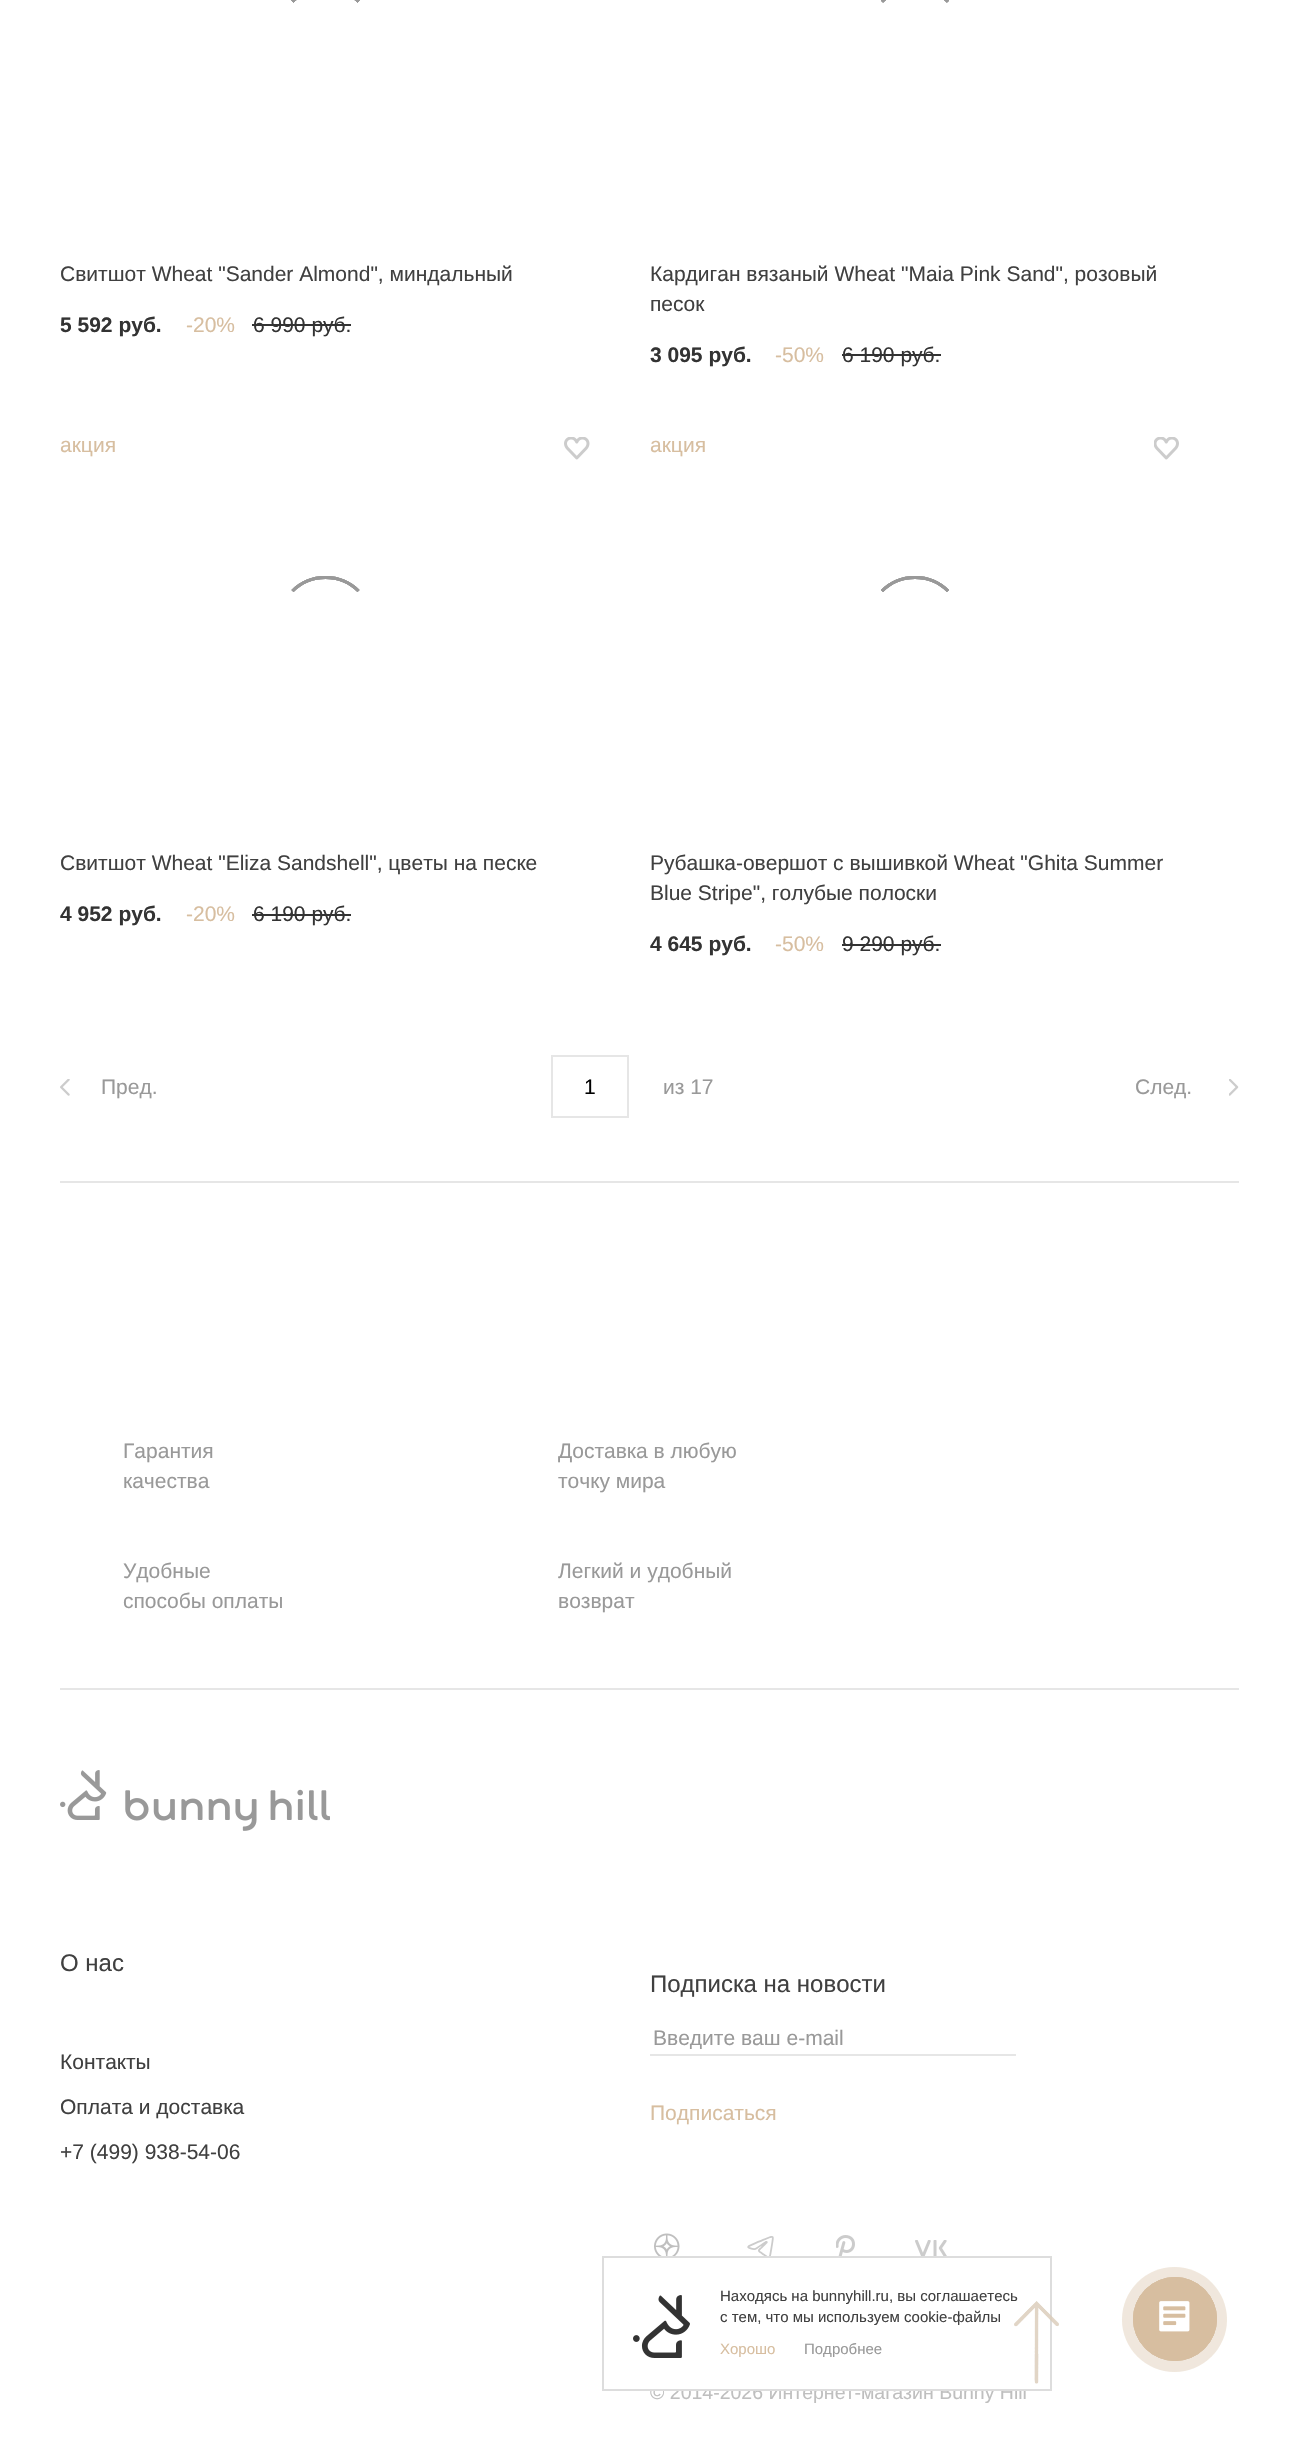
#include "include/core/SkBlurTypes.h"
#include "include/core/SkCanvas.h"
#include "include/core/SkData.h"
#include "include/core/SkFont.h"
#include "include/core/SkFontMgr.h"
#include "include/core/SkImage.h"
#include "include/core/SkMaskFilter.h"
#include "include/core/SkPaint.h"
#include "include/core/SkPathBuilder.h"
#include "include/core/SkTextBlob.h"
#include "include/effects/SkDashPathEffect.h"
#include "include/effects/SkGradientShader.h"
#include "include/utils/SkParsePath.h"

extern sk_sp<SkFontMgr> fontMgr;

void draw(SkCanvas* canvas) {
    SkPaint p;
    p.setAntiAlias(true);
    auto font = [&](const char* family, int weight, float size, bool italic = false) {
        SkFontStyle style(weight, SkFontStyle::kNormal_Width,
            italic ? SkFontStyle::kItalic_Slant : SkFontStyle::kUpright_Slant);
        SkFont result(fontMgr->matchFamilyStyle(family, style), size);
        result.setSubpixel(true);
        return result;
    };
    auto drawPhoto = [&](const char* path, float l, float t, float r, float b) {
        auto image = SkImages::DeferredFromEncodedData(SkData::MakeFromFileName(path));
        canvas->drawImageRect(image, SkRect::MakeLTRB(l, t, r, b), SkSamplingOptions());
    };
    canvas->clear(0xFFFFFFFF);
    p.setStyle(SkPaint::kStroke_Style);
    p.setStrokeWidth(3);
    p.setColor(0xFF999999);
    canvas->drawPath(SkPathBuilder().moveTo(292.5f, 1.5f).cubicTo(310.5f, -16.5f, 340.5f, -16.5f, 358.5f, 1.5f).detach(), p);
    canvas->drawPath(SkPathBuilder().moveTo(292.5f, 1.5f).cubicTo(310.5f, -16.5f, 340.5f, -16.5f, 358.5f, 1.5f).detach(), p);
    canvas->drawPath(SkPathBuilder().moveTo(292.5f, 1.5f).cubicTo(310.5f, -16.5f, 340.5f, -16.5f, 358.5f, 1.5f).detach(), p);
    canvas->drawPath(SkPathBuilder().moveTo(292.5f, 1.5f).cubicTo(310.5f, -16.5f, 340.5f, -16.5f, 358.5f, 1.5f).detach(), p);
    canvas->drawPath(SkPathBuilder().moveTo(292.5f, 1.5f).cubicTo(310.5f, -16.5f, 340.5f, -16.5f, 358.5f, 1.5f).detach(), p);
    canvas->drawPath(SkPathBuilder().moveTo(292.5f, 1.5f).cubicTo(310.5f, -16.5f, 340.5f, -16.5f, 358.5f, 1.5f).detach(), p);
    canvas->drawPath(SkPathBuilder().moveTo(292.5f, 1.5f).cubicTo(310.5f, -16.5f, 340.5f, -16.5f, 358.5f, 1.5f).detach(), p);
    canvas->drawPath(SkPathBuilder().moveTo(292.5f, 1.5f).cubicTo(310.5f, -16.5f, 340.5f, -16.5f, 358.5f, 1.5f).detach(), p);
    auto font1 = font("Liberation Sans", 400, 21);
    p.setStyle(SkPaint::kFill_Style);
    p.setColor(0xFF404040);
    canvas->drawString("Свитшот Wheat \"Sander Almond\", миндальный", 60, 281, font1, p);
    auto font2 = font("Liberation Sans", 700, 21);
    p.setColor(0xFF333333);
    canvas->drawString("5 592 руб.", 60, 332, font2, p);
    p.setColor(0xFFD7BEA0);
    canvas->drawString("-20%", 186, 332, font1, p);
    p.setColor(0xFF333333);
    canvas->drawString("6 990 руб.", 253, 332, font1, p);
    canvas->drawRect(SkRect::MakeLTRB(252, 324, 351, 326), p);
    p.setStyle(SkPaint::kStroke_Style);
    p.setColor(0xFF999999);
    canvas->drawPath(SkPathBuilder().moveTo(882, 1.5f).cubicTo(900, -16.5f, 930, -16.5f, 948, 1.5f).detach(), p);
    canvas->drawPath(SkPathBuilder().moveTo(882, 1.5f).cubicTo(900, -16.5f, 930, -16.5f, 948, 1.5f).detach(), p);
    canvas->drawPath(SkPathBuilder().moveTo(882, 1.5f).cubicTo(900, -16.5f, 930, -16.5f, 948, 1.5f).detach(), p);
    canvas->drawPath(SkPathBuilder().moveTo(882, 1.5f).cubicTo(900, -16.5f, 930, -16.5f, 948, 1.5f).detach(), p);
    canvas->drawPath(SkPathBuilder().moveTo(882, 1.5f).cubicTo(900, -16.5f, 930, -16.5f, 948, 1.5f).detach(), p);
    canvas->drawPath(SkPathBuilder().moveTo(882, 1.5f).cubicTo(900, -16.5f, 930, -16.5f, 948, 1.5f).detach(), p);
    canvas->drawPath(SkPathBuilder().moveTo(882, 1.5f).cubicTo(900, -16.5f, 930, -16.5f, 948, 1.5f).detach(), p);
    canvas->drawPath(SkPathBuilder().moveTo(882, 1.5f).cubicTo(900, -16.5f, 930, -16.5f, 948, 1.5f).detach(), p);
    p.setStyle(SkPaint::kFill_Style);
    p.setColor(0xFF404040);
    canvas->drawString("Кардиган вязаный Wheat \"Maia Pink Sand\", розовый", 650, 281, font1, p);
    canvas->drawString("песок", 650, 311, font1, p);
    p.setColor(0xFF333333);
    canvas->drawString("3 095 руб.", 650, 362, font2, p);
    p.setColor(0xFFD7BEA0);
    canvas->drawString("-50%", 775, 362, font1, p);
    p.setColor(0xFF333333);
    canvas->drawString("6 190 руб.", 842, 362, font1, p);
    canvas->drawRect(SkRect::MakeLTRB(842, 354, 941, 356), p);
    p.setColor(0xFFD7BEA0);
    canvas->drawString("акция", 60, 452, font1, p);
    drawPhoto("media/1.png", 564, 437, 590, 460);
    p.setStyle(SkPaint::kStroke_Style);
    p.setColor(0xFF999999);
    canvas->drawPath(SkPathBuilder().moveTo(292.5f, 591).cubicTo(310.5f, 573, 340.5f, 573, 358.5f, 591).detach(), p);
    canvas->drawPath(SkPathBuilder().moveTo(292.5f, 591).cubicTo(310.5f, 573, 340.5f, 573, 358.5f, 591).detach(), p);
    canvas->drawPath(SkPathBuilder().moveTo(292.5f, 591).cubicTo(310.5f, 573, 340.5f, 573, 358.5f, 591).detach(), p);
    canvas->drawPath(SkPathBuilder().moveTo(292.5f, 591).cubicTo(310.5f, 573, 340.5f, 573, 358.5f, 591).detach(), p);
    p.setStyle(SkPaint::kFill_Style);
    p.setColor(0xFF404040);
    canvas->drawString("Свитшот Wheat \"Eliza Sandshell\", цветы на песке", 60, 870, font1, p);
    p.setColor(0xFF333333);
    canvas->drawString("4 952 руб.", 60, 921, font2, p);
    p.setColor(0xFFD7BEA0);
    canvas->drawString("-20%", 186, 921, font1, p);
    p.setColor(0xFF333333);
    canvas->drawString("6 190 руб.", 253, 921, font1, p);
    canvas->drawRect(SkRect::MakeLTRB(252, 914, 351, 916), p);
    p.setColor(0xFFD7BEA0);
    canvas->drawString("акция", 650, 452, font1, p);
    drawPhoto("media/2.png", 1154, 437, 1179, 460);
    p.setStyle(SkPaint::kStroke_Style);
    p.setColor(0xFF999999);
    canvas->drawPath(SkPathBuilder().moveTo(882, 591).cubicTo(900, 573, 930, 573, 948, 591).detach(), p);
    canvas->drawPath(SkPathBuilder().moveTo(882, 591).cubicTo(900, 573, 930, 573, 948, 591).detach(), p);
    canvas->drawPath(SkPathBuilder().moveTo(882, 591).cubicTo(900, 573, 930, 573, 948, 591).detach(), p);
    canvas->drawPath(SkPathBuilder().moveTo(882, 591).cubicTo(900, 573, 930, 573, 948, 591).detach(), p);
    p.setStyle(SkPaint::kFill_Style);
    p.setColor(0xFF404040);
    canvas->drawString("Рубашка-овершот с вышивкой Wheat \"Ghita Summer", 650, 870, font1, p);
    canvas->drawString("Blue Stripe\", голубые полоски", 650, 900, font1, p);
    p.setColor(0xFF333333);
    canvas->drawString("4 645 руб.", 650, 951, font2, p);
    p.setColor(0xFFD7BEA0);
    canvas->drawString("-50%", 775, 951, font1, p);
    p.setColor(0xFF333333);
    canvas->drawString("9 290 руб.", 842, 951, font1, p);
    canvas->drawRect(SkRect::MakeLTRB(842, 944, 941, 946), p);
    p.setColor(0xFFE6E6E6);
    canvas->drawRect(SkRect::MakeLTRB(60, 1181, 1239, 1183), p);
    drawPhoto("media/3.png", 60, 1079, 70, 1096);
    p.setColor(0xFF999999);
    canvas->drawString("Пред.", 101, 1094, font1, p);
    p.setStyle(SkPaint::kStroke_Style);
    p.setStrokeWidth(2);
    p.setColor(0xFFE6E6E6);
    canvas->drawRect(SkRect::MakeLTRB(552, 1056, 628, 1117), p);
    p.setStyle(SkPaint::kFill_Style);
    p.setColor(0xFF000000);
    canvas->drawString("1", 584, 1094, font1, p);
    p.setColor(0xFF999999);
    canvas->drawString("из 17", 663, 1094, font1, p);
    canvas->drawString("След.", 1135, 1094, font1, p);
    drawPhoto("media/4.png", 1229, 1079, 1239, 1096);
    p.setColor(0xFFE6E6E6);
    canvas->drawRect(SkRect::MakeLTRB(60, 1688, 1239, 1690), p);
    p.setColor(0xFF999999);
    {
        const struct { const char* s; float x, y; } items[] = {
            {"Гарантия", 123, 1458},
            {"качества", 123, 1488},
            {"Доставка в любую", 558, 1458},
            {"точку мира", 558, 1488},
            {"Удобные", 123, 1578},
            {"способы оплаты", 123, 1608},
            {"Легкий и удобный", 558, 1578},
            {"возврат", 558, 1608},
        };
        for (auto [s, x, y] : items) {
            canvas->drawString(s, x, y, font1, p);
        }
    }
    drawPhoto("media/5.png", 60, 1770, 330, 1831);
    auto font3 = font("Liberation Sans", 400, 24);
    p.setColor(0xFF404040);
    canvas->drawString("О нас", 60, 1971, font3, p);
    {
        const struct { const char* s; float x, y; } items[] = {
            {"Контакты", 60, 2069},
            {"Оплата и доставка", 60, 2114},
            {"+7 (499) 938-54-06", 60, 2159},
        };
        for (auto [s, x, y] : items) {
            canvas->drawString(s, x, y, font1, p);
        }
    }
    canvas->drawString("Подписка на новости", 650, 1992, font3, p);
    p.setColor(0xFFE6E6E6);
    canvas->drawRect(SkRect::MakeLTRB(650, 2054, 1016, 2056), p);
    canvas->save();
    canvas->clipRect(SkRect::MakeLTRB(653, 2025, 1013, 2049));
    p.setColor(0xFF999999);
    canvas->drawString("Введите ваш e-mail", 653, 2045, font1, p);
    canvas->restore();
    p.setColor(0xFFD7BEA0);
    canvas->drawString("Подписаться", 650, 2120, font1, p);
    drawPhoto("media/6.png", 654, 2233, 680, 2256);
    drawPhoto("media/7.png", 747, 2236, 774, 2256);
    drawPhoto("media/8.png", 836, 2235, 855, 2256);
    drawPhoto("media/9.png", 915, 2240, 947, 2256);
    auto font4 = font("Liberation Sans", 400, 19.5f);
    p.setColor(0xFFBFBFBF);
    canvas->drawString("© 2014-2026 Интернет-магазин Bunny Hill", 650, 2399, font4, p);
    p.setColor(0xFFF7F2EC);
    canvas->drawCircle(1174.5f, 2319.5f, 52.5f, p);
    p.setStyle(SkPaint::kStroke_Style);
    p.setStrokeWidth(1);
    p.setColor(0xFFD7BEA0);
    canvas->drawCircle(1175, 2319, 41.5f, p);
    p.setStyle(SkPaint::kFill_Style);
    p.setColor(0xFFFFFFFF);
    canvas->drawRect(SkRect::MakeLTRB(650, 2384, 1026, 2389), p);
    drawPhoto("media/10.png", 633, 2295, 690, 2358);
    p.setStyle(SkPaint::kStroke_Style);
    p.setStrokeWidth(2);
    p.setColor(0xFFDDDDDD);
    canvas->drawRect(SkRect::MakeLTRB(603, 2257, 1051, 2390), p);
    auto font5 = font("Liberation Sans", 400, 15);
    p.setStyle(SkPaint::kFill_Style);
    p.setColor(0xFF404040);
    canvas->drawString("Находясь на bunnyhill.ru, вы соглашаетесь", 720, 2301, font5, p);
    canvas->drawString("с тем, что мы используем cookie-файлы", 720, 2322, font5, p);
    p.setColor(0xFFD7BEA0);
    canvas->drawString("Хорошо", 720, 2354, font5, p);
    p.setColor(0xFF999999);
    canvas->drawString("Подробнее", 804, 2354, font5, p);
    drawPhoto("media/11.png", 1014, 2301, 1059, 2384);
    p.setColor(0x33D7BEA0);
    canvas->drawCircle(1174.5f, 2319.5f, 52.5f, p);
    p.setStyle(SkPaint::kStroke_Style);
    p.setStrokeWidth(1);
    p.setColor(0xFFD7BEA0);
    canvas->drawCircle(1175, 2319, 41.5f, p);
    p.setStyle(SkPaint::kFill_Style);
    canvas->drawCircle(1175, 2319, 42, p);
    drawPhoto("media/12.png", 1159, 2301, 1190, 2332);
}
